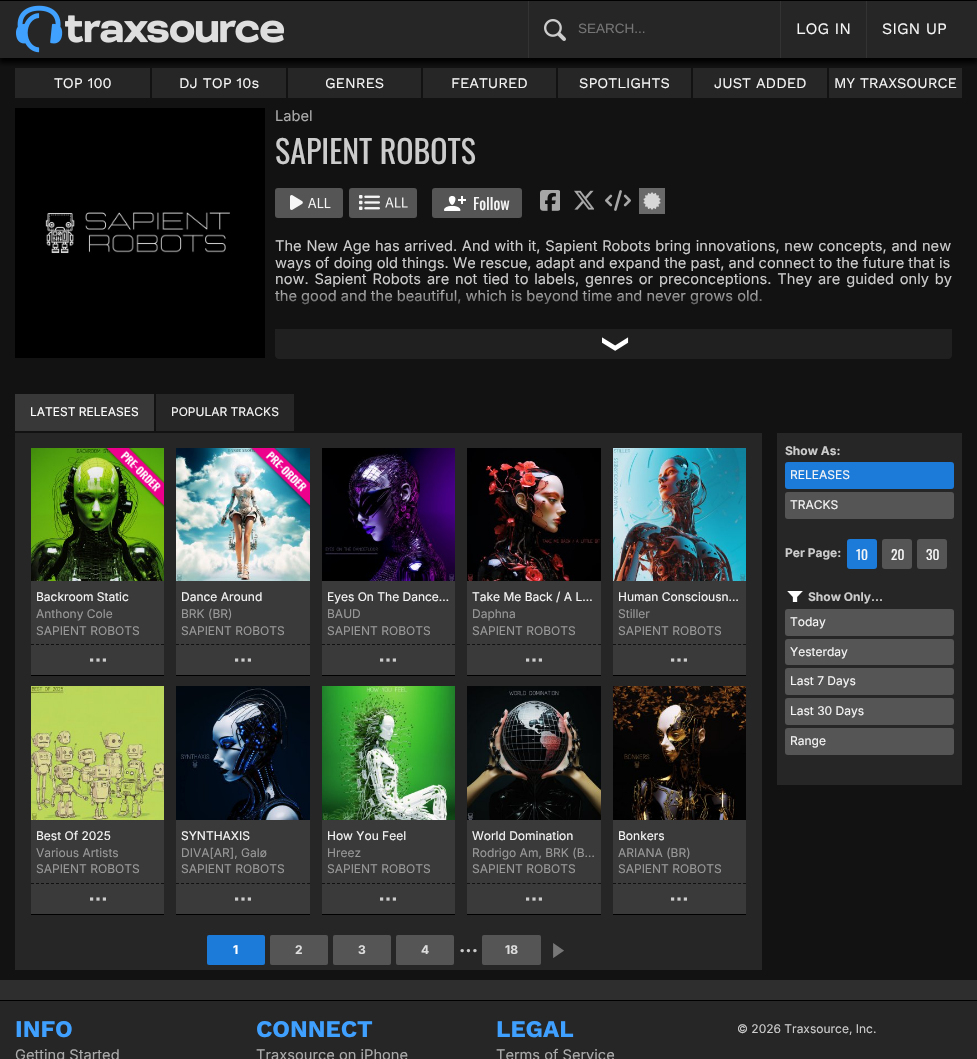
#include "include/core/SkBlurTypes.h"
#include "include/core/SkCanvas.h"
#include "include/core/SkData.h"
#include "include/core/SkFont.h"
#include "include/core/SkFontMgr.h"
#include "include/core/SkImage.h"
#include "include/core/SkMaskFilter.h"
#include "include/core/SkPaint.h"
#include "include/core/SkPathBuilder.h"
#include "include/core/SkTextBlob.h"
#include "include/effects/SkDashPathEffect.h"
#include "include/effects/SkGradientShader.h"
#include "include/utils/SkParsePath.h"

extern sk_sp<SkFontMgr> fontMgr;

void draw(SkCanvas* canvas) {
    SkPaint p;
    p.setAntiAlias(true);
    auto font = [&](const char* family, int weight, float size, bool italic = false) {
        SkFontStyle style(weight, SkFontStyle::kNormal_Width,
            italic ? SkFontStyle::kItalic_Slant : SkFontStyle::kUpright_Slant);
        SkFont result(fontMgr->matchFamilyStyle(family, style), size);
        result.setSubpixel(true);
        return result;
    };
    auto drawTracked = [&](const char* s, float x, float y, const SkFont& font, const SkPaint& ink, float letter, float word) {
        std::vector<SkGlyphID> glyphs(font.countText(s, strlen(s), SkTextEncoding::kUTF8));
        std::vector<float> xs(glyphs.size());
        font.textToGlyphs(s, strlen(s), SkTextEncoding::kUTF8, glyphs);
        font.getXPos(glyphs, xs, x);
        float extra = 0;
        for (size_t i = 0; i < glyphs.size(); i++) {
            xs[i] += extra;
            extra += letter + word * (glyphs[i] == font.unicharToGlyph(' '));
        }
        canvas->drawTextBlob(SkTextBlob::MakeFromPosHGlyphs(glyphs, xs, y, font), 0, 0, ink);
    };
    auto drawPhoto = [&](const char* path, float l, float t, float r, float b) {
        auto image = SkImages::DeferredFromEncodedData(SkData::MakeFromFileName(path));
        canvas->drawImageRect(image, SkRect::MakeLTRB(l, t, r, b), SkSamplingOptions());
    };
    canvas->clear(0xFF121212);
    {
        const struct { float l, t, r, b; SkColor color; } items[] = {
            {15, 68, 150, 98, 0xFF262626},
            {152, 68, 286, 98, 0xFF262626},
            {288, 68, 421, 98, 0xFF262626},
            {423, 68, 556, 98, 0xFF262626},
            {558, 68, 691, 98, 0xFF262626},
            {693, 68, 827, 98, 0xFF262626},
            {829, 68, 962, 98, 0xFF262626},
        };
        for (auto [l, t, r, b, color] : items) {
            p.setColor(color);
            canvas->drawRect(SkRect::MakeLTRB(l, t, r, b), p);
        }
    }
    p.setColor(0xFF000000);
    p.setMaskFilter(SkMaskFilter::MakeBlur(kNormal_SkBlurStyle, 2.5f));
    canvas->drawRect(SkRect::MakeLTRB(-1, 3, 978, 63), p);
    p.setMaskFilter(nullptr);
    {
        const struct { float l, t, r, b; SkColor color; } items[] = {
            {0, 1, 977, 58, 0xFF262626},
            {528, 0, 529, 58, 0xFF333333},
            {780, 0, 781, 58, 0xFF333333},
            {866, 0, 867, 58, 0xFF333333},
            {0, 0, 977, 1, 0xFF000000},
        };
        for (auto [l, t, r, b, color] : items) {
            p.setColor(color);
            canvas->drawRect(SkRect::MakeLTRB(l, t, r, b), p);
        }
    }
    drawPhoto("media/1.png", 16, 5, 284, 53);
    drawPhoto("media/2.png", 544, 19, 566, 41);
    auto font1 = font("Liberation Sans", 400, 13.5f);
    p.setColor(0xFF757575);
    canvas->drawString("SEARCH...", 578, 33, font1, p);
    auto font2 = font("Work Sans", 400, 16);
    p.setColor(0xFFF6F6F6);
    canvas->drawString("LOG IN", 796, 34, font2, p);
    canvas->drawString("SIGN UP", 882, 34, font2, p);
    auto font3 = font("Work Sans", 400, 14.65f);
    {
        const struct { const char* s; float x, y; } items[] = {
            {"TOP 100", 54, 88},
            {"DJ TOP 10s", 179, 88},
            {"GENRES", 325, 88},
            {"FEATURED", 451, 88},
            {"SPOTLIGHTS", 579, 88},
            {"JUST ADDED", 714, 88},
            {"MY TRAXSOURCE", 834, 88},
        };
        for (auto [s, x, y] : items) {
            canvas->drawString(s, x, y, font3, p);
        }
    }
    drawPhoto("media/3.png", 15, 108, 265, 358);
    auto font4 = font("Inter", 400, 14.65f);
    p.setColor(0xFFAAAAAA);
    canvas->drawString("Label", 275, 121, font4, p);
    auto font5 = font("Oswald", 400, 32);
    p.setColor(0xFFCCCCCC);
    canvas->drawString("SAPIENT ROBOTS", 275, 164, font5, p);
    p.setColor(0xFF555555);
    canvas->drawRoundRect(SkRect::MakeLTRB(275, 188, 343, 218), 3, 3, p);
    drawPhoto("media/4.png", 290, 195, 331, 210);
    canvas->drawRoundRect(SkRect::MakeLTRB(349, 188, 417, 218), 3, 3, p);
    drawPhoto("media/5.png", 359, 195, 408, 210);
    canvas->drawRoundRect(SkRect::MakeLTRB(432, 188, 522, 218), 3, 3, p);
    drawPhoto("media/6.png", 444, 196, 466, 211);
    auto font6 = font("Oswald", 400, 16);
    p.setColor(0xFFF6F6F6);
    canvas->drawString("Follow", 473, 210, font6, p);
    drawPhoto("media/7.png", 540, 190, 560, 211);
    drawPhoto("media/8.png", 574, 190, 594, 210);
    drawPhoto("media/9.png", 605, 190, 631, 211);
    p.setColor(0xFF696969);
    canvas->drawRect(SkRect::MakeLTRB(639, 188, 665, 214), p);
    drawPhoto("media/10.png", 643, 192, 661, 210);
    p.setColor(0xFFCCCCCC);
    drawTracked("The New Age has arrived. And with it, Sapient Robots bring innovations, new concepts, and new", 275, 251, font4, p, 0, 0.6f);
    canvas->drawString("ways of doing old things. We rescue, adapt and expand the past, and connect to the future that is", 275, 268, font4, p);
    drawTracked("now. Sapient Robots are not tied to labels, genres or preconceptions. They are guided only by", 275, 284, font4, p, 0, 1.75f);
    canvas->drawString("the good and the beautiful, which is beyond time and never grows old.", 275, 301, font4, p);
    {
        const SkColor colors[] = {0xFF121212, 0x00121212};
        const float stops[] = {0.05f, 0.4f};
        const SkPoint ends[] = {{614, 321}, {614, 238}};
        p.setShader(SkGradientShader::MakeLinear(ends, colors, stops, 2, SkTileMode::kClamp));
        p.setAlpha(255);
    }
    canvas->drawRect(SkRect::MakeLTRB(275, 290, 762, 305), p);
    p.setShader(nullptr);
    p.setColor(0xFF202020);
    canvas->drawPath(SkPathBuilder().moveTo(275, 329).lineTo(952, 329).lineTo(952, 355).cubicTo(952, 357, 950, 359, 948, 359).lineTo(279, 359).cubicTo(277, 359, 275, 357, 275, 355).close().detach(), p);
    drawPhoto("media/11.png", 602, 337, 629, 351);
    p.setColor(0xFF383838);
    canvas->drawRect(SkRect::MakeLTRB(15, 394, 154, 431), p);
    auto font7 = font("Inter", 400, 12);
    p.setColor(0xFFFFFFFF);
    canvas->drawString("LATEST RELEASES", 30, 416, font7, p);
    p.setColor(0xFF262626);
    canvas->drawRect(SkRect::MakeLTRB(156, 394, 294, 431), p);
    p.setColor(0xFFF6F6F6);
    canvas->drawString("POPULAR TRACKS", 171, 416, font7, p);
    p.setColor(0xFF262626);
    canvas->drawRect(SkRect::MakeLTRB(15, 433, 762, 970), p);
    p.setColor(0xFF3A3A3A);
    canvas->drawRect(SkRect::MakeLTRB(31, 581, 164, 675), p);
    drawPhoto("media/12.png", 31, 448, 164, 581);
    drawPhoto("media/13.png", 103, 448, 164, 509);
    p.setColor(0xFFF6F6F6);
    canvas->drawString("Backroom Static", 36, 601, font7, p);
    p.setColor(0xFF999999);
    canvas->drawString("Anthony Cole", 36, 618, font7, p);
    canvas->drawString("SAPIENT ROBOTS", 36, 635, font7, p);
    p.setStyle(SkPaint::kStroke_Style);
    p.setStrokeWidth(1);
    p.setColor(0xFF111111);
    p.setPathEffect(SkDashPathEffect::Make({{3, 2}}, 0));
    canvas->drawPath(SkPathBuilder().moveTo(31, 644.5f).lineTo(164, 644.5f).detach(), p);
    p.setPathEffect(nullptr);
    p.setStyle(SkPaint::kFill_Style);
    p.setColor(0xFF000000);
    canvas->drawRect(SkRect::MakeLTRB(31, 675, 164, 676), p);
    drawPhoto("media/14.png", 90, 658, 106, 662);
    p.setColor(0xFF3A3A3A);
    canvas->drawRect(SkRect::MakeLTRB(176, 581, 310, 675), p);
    drawPhoto("media/15.png", 176, 448, 310, 581);
    drawPhoto("media/16.png", 248, 448, 310, 509);
    p.setColor(0xFFF6F6F6);
    canvas->drawString("Dance Around", 181, 601, font7, p);
    p.setColor(0xFF999999);
    canvas->drawString("BRK (BR)", 181, 618, font7, p);
    canvas->drawString("SAPIENT ROBOTS", 181, 635, font7, p);
    p.setStyle(SkPaint::kStroke_Style);
    p.setColor(0xFF111111);
    p.setPathEffect(SkDashPathEffect::Make({{3, 2.04f}}, 0));
    canvas->drawPath(SkPathBuilder().moveTo(176, 644.5f).lineTo(310, 644.5f).detach(), p);
    p.setPathEffect(nullptr);
    p.setStyle(SkPaint::kFill_Style);
    p.setColor(0xFF000000);
    canvas->drawRect(SkRect::MakeLTRB(176, 675, 310, 676), p);
    drawPhoto("media/14.png", 235, 658, 251, 662);
    p.setColor(0xFF3A3A3A);
    canvas->drawRect(SkRect::MakeLTRB(322, 581, 455, 675), p);
    drawPhoto("media/17.png", 322, 448, 455, 581);
    p.setColor(0xFFF6F6F6);
    canvas->drawString("Eyes On The Dance…", 327, 601, font7, p);
    p.setColor(0xFF999999);
    canvas->drawString("BAUD", 327, 618, font7, p);
    canvas->drawString("SAPIENT ROBOTS", 327, 635, font7, p);
    p.setStyle(SkPaint::kStroke_Style);
    p.setColor(0xFF111111);
    p.setPathEffect(SkDashPathEffect::Make({{3, 2}}, 0));
    canvas->drawPath(SkPathBuilder().moveTo(322, 644.5f).lineTo(455, 644.5f).detach(), p);
    p.setPathEffect(nullptr);
    p.setStyle(SkPaint::kFill_Style);
    p.setColor(0xFF000000);
    canvas->drawRect(SkRect::MakeLTRB(322, 675, 455, 676), p);
    drawPhoto("media/14.png", 380, 658, 396, 662);
    p.setColor(0xFF3A3A3A);
    canvas->drawRect(SkRect::MakeLTRB(467, 581, 601, 675), p);
    drawPhoto("media/18.png", 467, 448, 601, 581);
    p.setColor(0xFFF6F6F6);
    canvas->drawString("Take Me Back / A L…", 472, 601, font7, p);
    p.setColor(0xFF999999);
    canvas->drawString("Daphna", 472, 618, font7, p);
    canvas->drawString("SAPIENT ROBOTS", 472, 635, font7, p);
    p.setStyle(SkPaint::kStroke_Style);
    p.setColor(0xFF111111);
    p.setPathEffect(SkDashPathEffect::Make({{3, 2.04f}}, 0));
    canvas->drawPath(SkPathBuilder().moveTo(467, 644.5f).lineTo(601, 644.5f).detach(), p);
    p.setPathEffect(nullptr);
    p.setStyle(SkPaint::kFill_Style);
    p.setColor(0xFF000000);
    canvas->drawRect(SkRect::MakeLTRB(467, 675, 601, 676), p);
    drawPhoto("media/14.png", 526, 658, 542, 662);
    p.setColor(0xFF3A3A3A);
    canvas->drawRect(SkRect::MakeLTRB(613, 581, 746, 675), p);
    drawPhoto("media/19.png", 613, 448, 746, 581);
    p.setColor(0xFFF6F6F6);
    canvas->drawString("Human Consciousn…", 618, 601, font7, p);
    p.setColor(0xFF999999);
    canvas->drawString("Stiller", 618, 618, font7, p);
    canvas->drawString("SAPIENT ROBOTS", 618, 635, font7, p);
    p.setStyle(SkPaint::kStroke_Style);
    p.setColor(0xFF111111);
    p.setPathEffect(SkDashPathEffect::Make({{3, 2}}, 0));
    canvas->drawPath(SkPathBuilder().moveTo(613, 644.5f).lineTo(746, 644.5f).detach(), p);
    p.setPathEffect(nullptr);
    p.setStyle(SkPaint::kFill_Style);
    p.setColor(0xFF000000);
    canvas->drawRect(SkRect::MakeLTRB(613, 675, 746, 676), p);
    drawPhoto("media/14.png", 671, 658, 687, 662);
    p.setColor(0xFF3A3A3A);
    canvas->drawRect(SkRect::MakeLTRB(31, 820, 164, 914), p);
    drawPhoto("media/20.png", 31, 686, 164, 820);
    p.setColor(0xFFF6F6F6);
    canvas->drawString("Best Of 2025", 36, 840, font7, p);
    p.setColor(0xFF999999);
    canvas->drawString("Various Artists", 36, 857, font7, p);
    canvas->drawString("SAPIENT ROBOTS", 36, 873, font7, p);
    p.setStyle(SkPaint::kStroke_Style);
    p.setColor(0xFF111111);
    p.setPathEffect(SkDashPathEffect::Make({{3, 2}}, 0));
    canvas->drawPath(SkPathBuilder().moveTo(31, 883.5f).lineTo(164, 883.5f).detach(), p);
    p.setPathEffect(nullptr);
    p.setStyle(SkPaint::kFill_Style);
    p.setColor(0xFF000000);
    canvas->drawRect(SkRect::MakeLTRB(31, 914, 164, 915), p);
    drawPhoto("media/14.png", 90, 897, 106, 901);
    p.setColor(0xFF3A3A3A);
    canvas->drawRect(SkRect::MakeLTRB(176, 820, 310, 914), p);
    drawPhoto("media/21.png", 176, 686, 310, 820);
    p.setColor(0xFFF6F6F6);
    canvas->drawString("SYNTHAXIS", 181, 840, font7, p);
    p.setColor(0xFF999999);
    canvas->drawString("DIVA[AR], Galø", 181, 857, font7, p);
    canvas->drawString("SAPIENT ROBOTS", 181, 873, font7, p);
    p.setStyle(SkPaint::kStroke_Style);
    p.setColor(0xFF111111);
    p.setPathEffect(SkDashPathEffect::Make({{3, 2.04f}}, 0));
    canvas->drawPath(SkPathBuilder().moveTo(176, 883.5f).lineTo(310, 883.5f).detach(), p);
    p.setPathEffect(nullptr);
    p.setStyle(SkPaint::kFill_Style);
    p.setColor(0xFF000000);
    canvas->drawRect(SkRect::MakeLTRB(176, 914, 310, 915), p);
    drawPhoto("media/14.png", 235, 897, 251, 901);
    p.setColor(0xFF3A3A3A);
    canvas->drawRect(SkRect::MakeLTRB(322, 820, 455, 914), p);
    drawPhoto("media/22.png", 322, 686, 455, 820);
    p.setColor(0xFFF6F6F6);
    canvas->drawString("How You Feel", 327, 840, font7, p);
    p.setColor(0xFF999999);
    canvas->drawString("Hreez", 327, 857, font7, p);
    canvas->drawString("SAPIENT ROBOTS", 327, 873, font7, p);
    p.setStyle(SkPaint::kStroke_Style);
    p.setColor(0xFF111111);
    p.setPathEffect(SkDashPathEffect::Make({{3, 2}}, 0));
    canvas->drawPath(SkPathBuilder().moveTo(322, 883.5f).lineTo(455, 883.5f).detach(), p);
    p.setPathEffect(nullptr);
    p.setStyle(SkPaint::kFill_Style);
    p.setColor(0xFF000000);
    canvas->drawRect(SkRect::MakeLTRB(322, 914, 455, 915), p);
    drawPhoto("media/14.png", 380, 897, 396, 901);
    p.setColor(0xFF3A3A3A);
    canvas->drawRect(SkRect::MakeLTRB(467, 820, 601, 914), p);
    drawPhoto("media/23.png", 467, 686, 601, 820);
    p.setColor(0xFFF6F6F6);
    canvas->drawString("World Domination", 472, 840, font7, p);
    p.setColor(0xFF999999);
    canvas->drawString("Rodrigo Am, BRK (B…", 472, 857, font7, p);
    canvas->drawString("SAPIENT ROBOTS", 472, 873, font7, p);
    p.setStyle(SkPaint::kStroke_Style);
    p.setColor(0xFF111111);
    p.setPathEffect(SkDashPathEffect::Make({{3, 2.04f}}, 0));
    canvas->drawPath(SkPathBuilder().moveTo(467, 883.5f).lineTo(601, 883.5f).detach(), p);
    p.setPathEffect(nullptr);
    p.setStyle(SkPaint::kFill_Style);
    p.setColor(0xFF000000);
    canvas->drawRect(SkRect::MakeLTRB(467, 914, 601, 915), p);
    drawPhoto("media/14.png", 526, 897, 542, 901);
    p.setColor(0xFF3A3A3A);
    canvas->drawRect(SkRect::MakeLTRB(613, 820, 746, 914), p);
    drawPhoto("media/24.png", 613, 686, 746, 820);
    p.setColor(0xFFF6F6F6);
    canvas->drawString("Bonkers", 618, 840, font7, p);
    p.setColor(0xFF999999);
    canvas->drawString("ARIANA (BR)", 618, 857, font7, p);
    canvas->drawString("SAPIENT ROBOTS", 618, 873, font7, p);
    p.setStyle(SkPaint::kStroke_Style);
    p.setColor(0xFF111111);
    p.setPathEffect(SkDashPathEffect::Make({{3, 2}}, 0));
    canvas->drawPath(SkPathBuilder().moveTo(613, 883.5f).lineTo(746, 883.5f).detach(), p);
    p.setPathEffect(nullptr);
    p.setStyle(SkPaint::kFill_Style);
    p.setColor(0xFF000000);
    canvas->drawRect(SkRect::MakeLTRB(613, 914, 746, 915), p);
    drawPhoto("media/14.png", 671, 897, 687, 901);
    p.setColor(0xFF1C7AD8);
    canvas->drawRoundRect(SkRect::MakeLTRB(207, 935, 265, 965), 2, 2, p);
    auto font8 = font("Inter", 700, 12);
    p.setColor(0xFFFFFFFF);
    canvas->drawString("1", 233, 954, font8, p);
    p.setColor(0xFF555555);
    canvas->drawRoundRect(SkRect::MakeLTRB(270, 935, 328, 965), 2, 2, p);
    p.setColor(0xFFDDDDDD);
    canvas->drawString("2", 295, 954, font8, p);
    p.setColor(0xFF555555);
    canvas->drawRoundRect(SkRect::MakeLTRB(333, 935, 391, 965), 2, 2, p);
    p.setColor(0xFFDDDDDD);
    canvas->drawString("3", 358, 954, font8, p);
    p.setColor(0xFF555555);
    canvas->drawRoundRect(SkRect::MakeLTRB(396, 935, 454, 965), 2, 2, p);
    p.setColor(0xFFDDDDDD);
    canvas->drawString("4", 421, 954, font8, p);
    auto font9 = font("Inter", 700, 19);
    p.setColor(0xFFCCCCCC);
    canvas->drawString("...", 459, 952, font9, p);
    p.setColor(0xFF555555);
    canvas->drawRoundRect(SkRect::MakeLTRB(482, 935, 541, 965), 2, 2, p);
    p.setColor(0xFFDDDDDD);
    canvas->drawString("18", 505, 954, font8, p);
    drawPhoto("media/25.png", 553, 943, 564, 958);
    p.setColor(0xFF262626);
    canvas->drawRect(SkRect::MakeLTRB(777, 433, 962, 785), p);
    p.setColor(0xFFCCCCCC);
    canvas->drawString("Show As:", 785, 455, font8, p);
    p.setColor(0xFF1C7AD8);
    canvas->drawRoundRect(SkRect::MakeLTRB(785, 462, 954, 489), 3, 3, p);
    p.setColor(0xFFF6F6F6);
    canvas->drawString("RELEASES", 790, 479, font7, p);
    p.setColor(0xFF555555);
    canvas->drawRoundRect(SkRect::MakeLTRB(785, 492, 954, 519), 3, 3, p);
    p.setColor(0xFFF6F6F6);
    canvas->drawString("TRACKS", 790, 509, font7, p);
    p.setColor(0xFFCCCCCC);
    canvas->drawString("Per Page:", 785, 557, font8, p);
    p.setColor(0xFF1C7AD8);
    canvas->drawRoundRect(SkRect::MakeLTRB(847, 539, 877, 569), 3, 3, p);
    auto font10 = font("Oswald", 400, 13.5f);
    p.setColor(0xFFF6F6F6);
    canvas->drawString("10", 856, 560, font10, p);
    p.setColor(0xFF555555);
    canvas->drawRoundRect(SkRect::MakeLTRB(882, 539, 912, 569), 3, 3, p);
    p.setColor(0xFFF6F6F6);
    canvas->drawString("20", 891, 560, font10, p);
    p.setColor(0xFF555555);
    canvas->drawRoundRect(SkRect::MakeLTRB(917, 539, 947, 569), 3, 3, p);
    p.setColor(0xFFF6F6F6);
    canvas->drawString("30", 926, 560, font10, p);
    drawPhoto("media/26.png", 787, 591, 803, 602);
    p.setColor(0xFFCCCCCC);
    canvas->drawString("Show Only...", 808, 601, font8, p);
    p.setColor(0xFF555555);
    canvas->drawRoundRect(SkRect::MakeLTRB(785, 609, 954, 636), 3, 3, p);
    p.setColor(0xFFF6F6F6);
    canvas->drawString("Today", 790, 626, font7, p);
    p.setColor(0xFF555555);
    canvas->drawRoundRect(SkRect::MakeLTRB(785, 639, 954, 665), 3, 3, p);
    p.setColor(0xFFF6F6F6);
    canvas->drawString("Yesterday", 790, 656, font7, p);
    p.setColor(0xFF555555);
    canvas->drawRoundRect(SkRect::MakeLTRB(785, 668, 954, 695), 3, 3, p);
    p.setColor(0xFFF6F6F6);
    canvas->drawString("Last 7 Days", 790, 685, font7, p);
    p.setColor(0xFF555555);
    canvas->drawRoundRect(SkRect::MakeLTRB(785, 698, 954, 725), 3, 3, p);
    p.setColor(0xFFF6F6F6);
    canvas->drawString("Last 30 Days", 790, 715, font7, p);
    p.setColor(0xFF555555);
    canvas->drawRoundRect(SkRect::MakeLTRB(785, 728, 954, 755), 3, 3, p);
    p.setColor(0xFFF6F6F6);
    canvas->drawString("Range", 790, 745, font7, p);
    {
        const struct { float l, t, r, b; SkColor color; } items[] = {
            {0, 1001, 977, 1059, 0xFF262626},
            {0, 980, 977, 1000, 0xFF2E2E2E},
            {0, 1000, 977, 1001, 0xFF000000},
        };
        for (auto [l, t, r, b, color] : items) {
            p.setColor(color);
            canvas->drawRect(SkRect::MakeLTRB(l, t, r, b), p);
        }
    }
    auto font11 = font("Work Sans", 700, 24);
    p.setColor(0xFF40A0FF);
    canvas->drawString("INFO", 15, 1037, font11, p);
    p.setColor(0xFFAAAAAA);
    canvas->drawString("Getting Started", 15, 1060, font4, p);
    p.setColor(0xFF40A0FF);
    canvas->drawString("CONNECT", 256, 1037, font11, p);
    p.setColor(0xFFAAAAAA);
    canvas->drawString("Traxsource on iPhone", 256, 1060, font4, p);
    p.setColor(0xFF40A0FF);
    canvas->drawString("LEGAL", 496, 1037, font11, p);
    p.setColor(0xFFAAAAAA);
    canvas->drawString("Terms of Service", 496, 1060, font4, p);
    p.setColor(0xFFCCCCCC);
    canvas->drawString("© 2026 Traxsource, Inc.", 737, 1033, font7, p);
}
